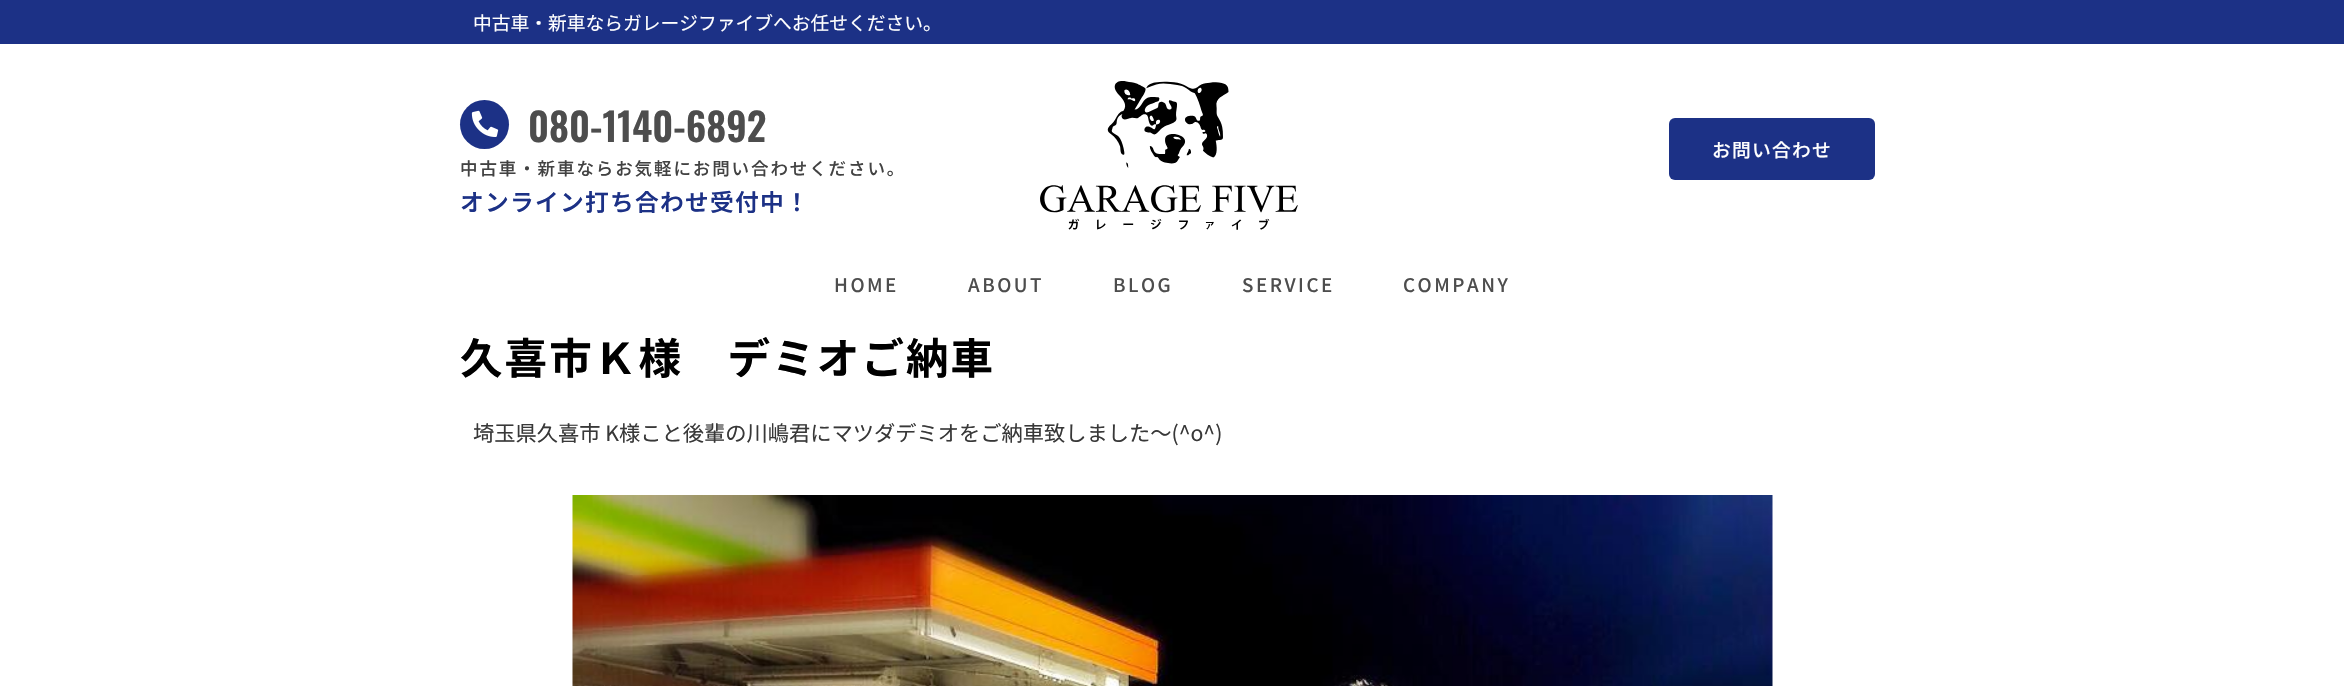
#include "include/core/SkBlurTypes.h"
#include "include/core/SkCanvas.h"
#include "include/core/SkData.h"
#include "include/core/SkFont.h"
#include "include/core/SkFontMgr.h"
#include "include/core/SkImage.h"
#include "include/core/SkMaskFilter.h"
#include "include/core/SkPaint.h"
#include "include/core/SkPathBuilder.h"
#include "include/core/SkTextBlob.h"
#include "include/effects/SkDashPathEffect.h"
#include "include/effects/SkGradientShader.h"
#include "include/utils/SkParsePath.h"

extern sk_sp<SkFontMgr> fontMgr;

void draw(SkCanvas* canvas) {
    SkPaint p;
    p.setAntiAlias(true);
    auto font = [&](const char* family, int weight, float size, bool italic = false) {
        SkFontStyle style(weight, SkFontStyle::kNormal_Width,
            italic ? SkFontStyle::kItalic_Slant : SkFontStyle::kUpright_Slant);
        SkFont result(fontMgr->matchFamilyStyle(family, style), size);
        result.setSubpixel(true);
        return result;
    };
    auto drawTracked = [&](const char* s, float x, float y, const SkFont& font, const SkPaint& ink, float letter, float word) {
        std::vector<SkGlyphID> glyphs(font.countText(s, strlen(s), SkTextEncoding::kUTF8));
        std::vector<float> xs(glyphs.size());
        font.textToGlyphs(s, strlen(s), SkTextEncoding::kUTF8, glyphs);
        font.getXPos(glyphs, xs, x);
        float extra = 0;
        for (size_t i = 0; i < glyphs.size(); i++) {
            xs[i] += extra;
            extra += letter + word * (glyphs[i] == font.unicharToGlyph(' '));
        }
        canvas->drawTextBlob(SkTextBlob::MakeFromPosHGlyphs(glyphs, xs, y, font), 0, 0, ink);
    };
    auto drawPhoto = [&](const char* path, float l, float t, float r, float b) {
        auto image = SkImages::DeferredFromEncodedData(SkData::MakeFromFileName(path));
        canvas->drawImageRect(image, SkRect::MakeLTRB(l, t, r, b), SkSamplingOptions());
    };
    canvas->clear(0xFFFFFFFF);
    p.setColor(0xFF1C3186);
    canvas->drawRect(SkRect::MakeLTRB(0, 0, 2344, 44), p);
    auto font1 = font("Noto Sans JP", 400, 18.75f);
    p.setColor(0xFFFFFFFF);
    canvas->drawString("中古車・新車ならガレージファイブへお任せください。", 473, 30, font1, p);
    p.setColor(0xFF1C3186);
    canvas->drawCircle(484.5f, 124.5f, 24.5f, p);
    drawPhoto("media/1.png", 471, 110, 499, 137);
    auto font2 = font("Oswald", 600, 38.75f);
    p.setColor(0xFF4D4D4D);
    canvas->drawString("080-1140-6892", 528, 142, font2, p);
    auto font3 = font("Noto Sans JP", 500, 17.5f);
    p.setColor(0xFF424242);
    drawTracked("中古車・新車ならお気軽にお問い合わせください。", 460, 175, font3, p, 1.9f, 0);
    auto font4 = font("Noto Sans JP", 600, 23.75f);
    p.setColor(0xFF1C3186);
    drawTracked("オンライン打ち合わせ受付中！", 460, 211, font4, p, 1.25f, 0);
    drawPhoto("media/2.png", 1040, 81, 1298, 230);
    canvas->drawRoundRect(SkRect::MakeLTRB(1669, 118, 1875, 180), 6, 6, p);
    auto font5 = font("Noto Sans JP", 500, 18.75f);
    p.setColor(0xFFFFFFFF);
    drawTracked("お問い合わせ", 1712, 157, font5, p, 1.25f, 0);
    p.setColor(0xFF4D4D4D);
    {
        const struct { const char* s; float x, y; } items[] = {
            {"HOME", 834, 292},
            {"ABOUT", 968, 292},
            {"BLOG", 1113, 292},
            {"SERVICE", 1242, 292},
            {"COMPANY", 1403, 292},
        };
        for (auto [s, x, y] : items) {
            drawTracked(s, x, y, font5, p, 2.5f, 0);
        }
    }
    auto font6 = font("Noto Sans JP", 700, 42.5f);
    p.setColor(0xFF000000);
    drawTracked("久喜市Ｋ様　デミオご納車", 460, 374, font6, p, 2.1f, 0);
    auto font7 = font("Noto Sans JP", 400, 21.25f);
    p.setColor(0xFF383838);
    canvas->drawString("埼玉県久喜市 K様こと後輩の川嶋君にマツダデミオをご納車致しました〜(^o^)", 473, 441, font7, p);
    drawPhoto("media/3.png", 572, 495, 1773, 686);
}
